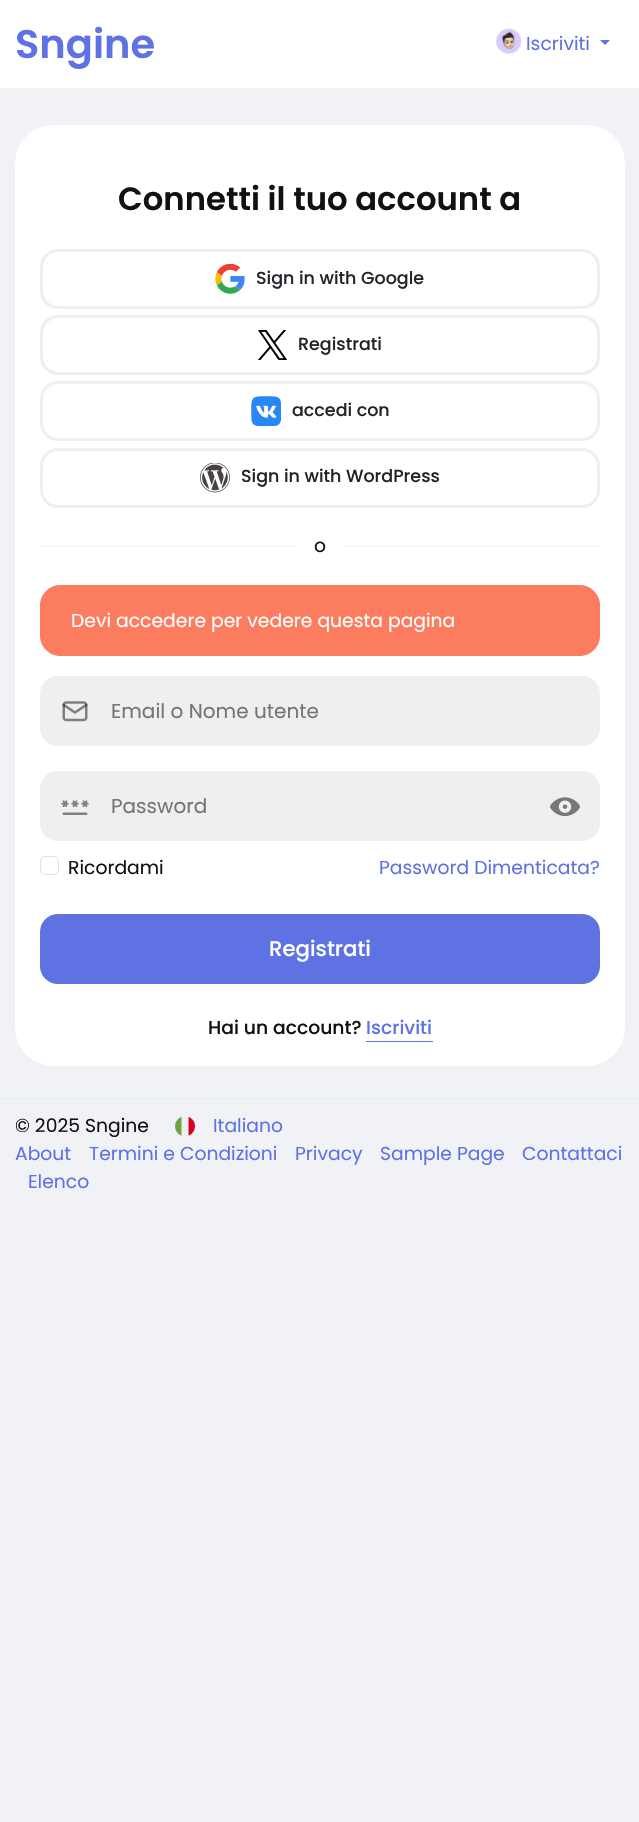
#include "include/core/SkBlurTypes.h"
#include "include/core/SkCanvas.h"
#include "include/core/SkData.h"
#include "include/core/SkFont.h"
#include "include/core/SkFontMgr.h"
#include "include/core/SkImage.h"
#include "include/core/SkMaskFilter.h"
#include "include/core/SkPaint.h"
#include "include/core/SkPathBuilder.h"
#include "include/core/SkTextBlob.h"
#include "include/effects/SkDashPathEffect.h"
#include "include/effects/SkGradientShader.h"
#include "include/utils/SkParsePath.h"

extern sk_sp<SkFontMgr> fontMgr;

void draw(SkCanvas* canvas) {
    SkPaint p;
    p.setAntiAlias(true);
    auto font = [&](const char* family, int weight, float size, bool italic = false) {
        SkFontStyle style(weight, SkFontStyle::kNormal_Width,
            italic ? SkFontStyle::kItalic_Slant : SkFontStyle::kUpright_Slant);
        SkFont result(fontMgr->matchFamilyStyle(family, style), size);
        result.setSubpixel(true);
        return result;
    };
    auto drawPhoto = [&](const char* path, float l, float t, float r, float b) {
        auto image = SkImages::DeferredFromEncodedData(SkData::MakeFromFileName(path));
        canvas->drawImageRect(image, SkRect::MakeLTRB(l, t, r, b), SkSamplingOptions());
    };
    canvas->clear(0xFFF0F2F5);
    p.setColor(0xFFFFFFFF);
    canvas->drawRect(SkRect::MakeLTRB(0, 0, 639, 88), p);
    auto font1 = font("Poppins", 600, 40);
    p.setColor(0xFF5E72E4);
    canvas->drawString("Sngine", 15, 58, font1, p);
    drawPhoto("media/1.png", 496, 28, 522, 54);
    auto font2 = font("Poppins", 400, 18.75f);
    canvas->drawString("Iscriviti", 526, 50, font2, p);
    canvas->drawPath(SkPathBuilder().moveTo(600, 40).lineTo(610, 40).lineTo(605, 45).close().detach(), p);
    p.setColor(0xFFFFFFFF);
    canvas->drawRoundRect(SkRect::MakeLTRB(15, 125, 625, 1066), 38, 38, p);
    auto font3 = font("Poppins", 600, 32.25f);
    p.setColor(0xFF111111);
    canvas->drawString("Connetti il tuo account a", 118, 210, font3, p);
    p.setStyle(SkPaint::kStroke_Style);
    p.setStrokeWidth(3);
    p.setColor(0xFFEFEFEF);
    canvas->drawRoundRect(SkRect::MakeLTRB(41.5f, 250.5f, 598.5f, 307.5f), 16.5f, 16.5f, p);
    drawPhoto("media/2.png", 215, 264, 245, 294);
    auto font4 = font("Poppins", 500, 17.5f);
    p.setStyle(SkPaint::kFill_Style);
    p.setColor(0xFF212529);
    canvas->drawString("Sign in with Google", 256, 284, font4, p);
    p.setStyle(SkPaint::kStroke_Style);
    p.setColor(0xFFEFEFEF);
    canvas->drawRoundRect(SkRect::MakeLTRB(41.5f, 316.5f, 598.5f, 373.5f), 16.5f, 16.5f, p);
    drawPhoto("media/3.png", 258, 330, 287, 360);
    p.setStyle(SkPaint::kFill_Style);
    p.setColor(0xFF212529);
    canvas->drawString("Registrati", 298, 350, font4, p);
    p.setStyle(SkPaint::kStroke_Style);
    p.setColor(0xFFEFEFEF);
    canvas->drawRoundRect(SkRect::MakeLTRB(41.5f, 382.5f, 598.5f, 439.5f), 16.5f, 16.5f, p);
    drawPhoto("media/4.png", 251, 396, 281, 426);
    p.setStyle(SkPaint::kFill_Style);
    p.setColor(0xFF212529);
    canvas->drawString("accedi con", 292, 416, font4, p);
    p.setStyle(SkPaint::kStroke_Style);
    p.setColor(0xFFEFEFEF);
    canvas->drawRoundRect(SkRect::MakeLTRB(41.5f, 449.5f, 598.5f, 506.5f), 16.5f, 16.5f, p);
    drawPhoto("media/5.png", 200, 463, 230, 493);
    p.setStyle(SkPaint::kFill_Style);
    p.setColor(0xFF212529);
    canvas->drawString("Sign in with WordPress", 241, 482, font4, p);
    p.setColor(0xFFF4F4F4);
    canvas->drawRect(SkRect::MakeLTRB(40, 546, 295, 547), p);
    p.setColor(0xFF111111);
    canvas->drawString("o", 314, 552, font2, p);
    p.setColor(0xFFF4F4F4);
    canvas->drawRect(SkRect::MakeLTRB(345, 546, 600, 547), p);
    p.setColor(0xFFFC7C5F);
    canvas->drawRoundRect(SkRect::MakeLTRB(40.5f, 585.5f, 599.5f, 655.5f), 19.5f, 19.5f, p);
    p.setStyle(SkPaint::kStroke_Style);
    p.setStrokeWidth(1);
    canvas->drawRoundRect(SkRect::MakeLTRB(40.5f, 585.5f, 599.5f, 655.5f), 19.5f, 19.5f, p);
    p.setStyle(SkPaint::kFill_Style);
    p.setColor(0xFFFFFFFF);
    canvas->drawString("Devi accedere per vedere questa pagina", 71, 627, font2, p);
    p.setColor(0xFFEFEFEF);
    canvas->drawRoundRect(SkRect::MakeLTRB(41.5f, 677.5f, 598.5f, 744.5f), 16.5f, 16.5f, p);
    p.setStyle(SkPaint::kStroke_Style);
    p.setStrokeWidth(3);
    canvas->drawRoundRect(SkRect::MakeLTRB(41.5f, 677.5f, 598.5f, 744.5f), 16.5f, 16.5f, p);
    drawPhoto("media/6.png", 62, 701, 88, 722);
    auto font5 = font("Poppins", 400, 20);
    p.setStyle(SkPaint::kFill_Style);
    p.setColor(0xFF757575);
    canvas->drawString("Email o Nome utente", 111, 718, font5, p);
    p.setColor(0xFFEFEFEF);
    canvas->drawRoundRect(SkRect::MakeLTRB(41.5f, 772.5f, 598.5f, 839.5f), 16.5f, 16.5f, p);
    p.setStyle(SkPaint::kStroke_Style);
    canvas->drawRoundRect(SkRect::MakeLTRB(41.5f, 772.5f, 598.5f, 839.5f), 16.5f, 16.5f, p);
    drawPhoto("media/7.png", 61, 800, 89, 815);
    p.setStyle(SkPaint::kFill_Style);
    p.setColor(0xFF757575);
    canvas->drawString("Password", 111, 813, font5, p);
    drawPhoto("media/8.png", 550, 797, 580, 817);
    p.setStyle(SkPaint::kStroke_Style);
    p.setStrokeWidth(1);
    p.setColor(0xFFDEE2E6);
    canvas->drawRoundRect(SkRect::MakeLTRB(40.5f, 856.5f, 58.5f, 874.5f), 4.5f, 4.5f, p);
    p.setStyle(SkPaint::kFill_Style);
    p.setColor(0xFF111111);
    canvas->drawString("Ricordami", 68, 874, font2, p);
    p.setColor(0xFF5E72E4);
    canvas->drawString("Password Dimenticata?", 379, 874, font2, p);
    canvas->drawRoundRect(SkRect::MakeLTRB(40, 914, 600, 984), 18, 18, p);
    auto font6 = font("Poppins", 500, 21.25f);
    p.setColor(0xFFFFFFFF);
    canvas->drawString("Registrati", 269, 956, font6, p);
    auto font7 = font("Poppins", 500, 18.75f);
    p.setColor(0xFF111111);
    canvas->drawString("Hai un account?", 208, 1034, font7, p);
    p.setColor(0xFF5E72E4);
    canvas->drawString("Iscriviti", 366, 1034, font7, p);
    canvas->drawRect(SkRect::MakeLTRB(366, 1041, 433, 1042), p);
    p.setColor(0xFFE6ECF5);
    canvas->drawRect(SkRect::MakeLTRB(0, 1098, 639, 1099), p);
    p.setColor(0xFF111111);
    canvas->drawString("© 2025 Sngine", 15, 1132, font2, p);
    drawPhoto("media/9.png", 175, 1116, 195, 1136);
    p.setColor(0xFF5E72E4);
    {
        const struct { const char* s; float x, y; } items[] = {
            {"Italiano", 213, 1132},
            {"About", 15, 1160},
            {"Termini e Condizioni", 89, 1160},
            {"Privacy", 295, 1160},
            {"Sample Page", 380, 1160},
            {"Contattaci", 522, 1160},
            {"Elenco", 28, 1188},
        };
        for (auto [s, x, y] : items) {
            canvas->drawString(s, x, y, font2, p);
        }
    }
}
